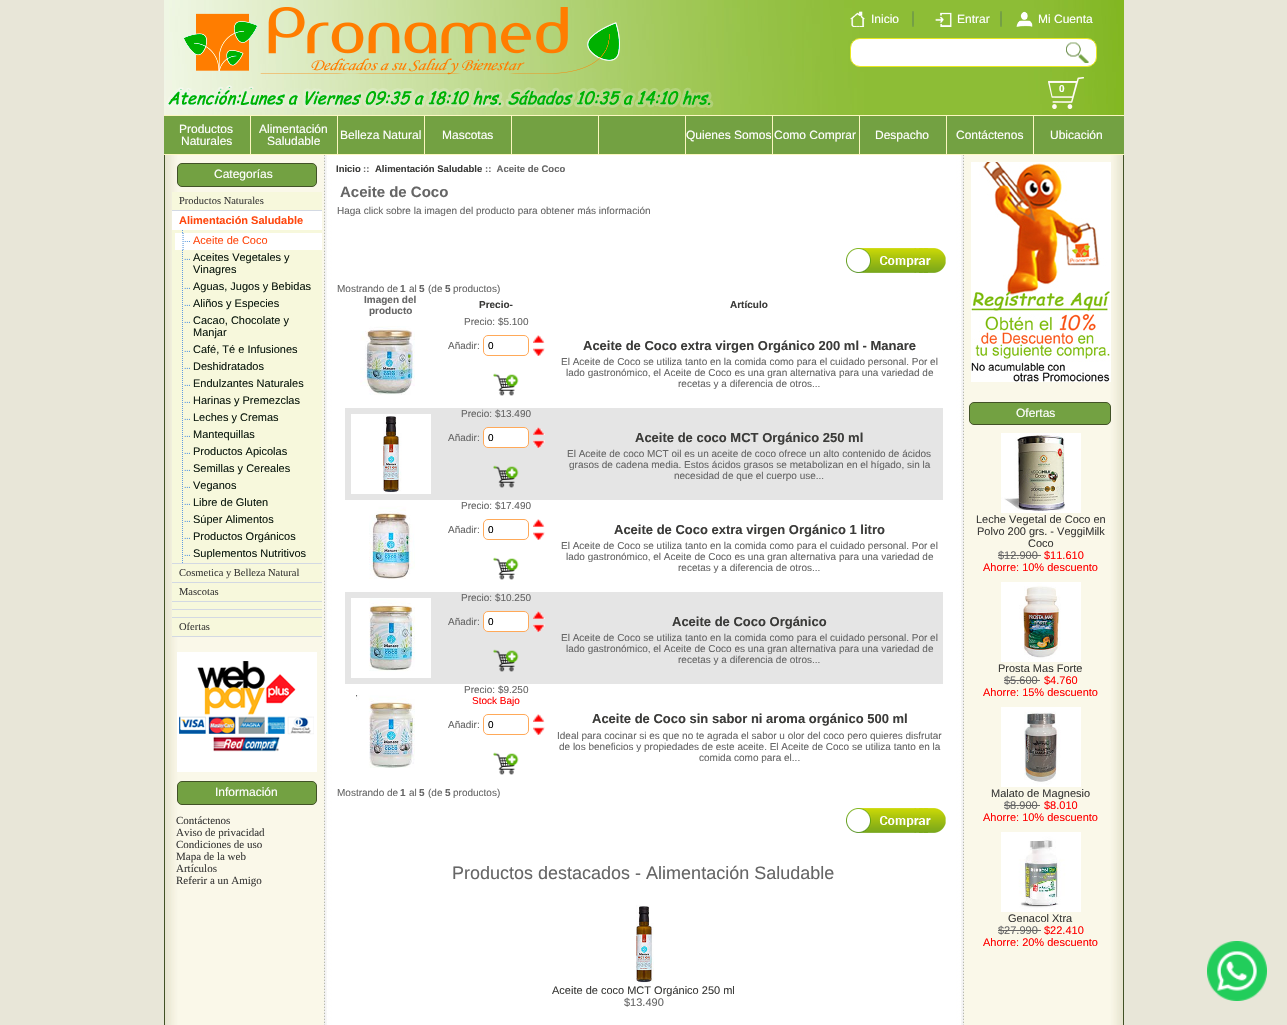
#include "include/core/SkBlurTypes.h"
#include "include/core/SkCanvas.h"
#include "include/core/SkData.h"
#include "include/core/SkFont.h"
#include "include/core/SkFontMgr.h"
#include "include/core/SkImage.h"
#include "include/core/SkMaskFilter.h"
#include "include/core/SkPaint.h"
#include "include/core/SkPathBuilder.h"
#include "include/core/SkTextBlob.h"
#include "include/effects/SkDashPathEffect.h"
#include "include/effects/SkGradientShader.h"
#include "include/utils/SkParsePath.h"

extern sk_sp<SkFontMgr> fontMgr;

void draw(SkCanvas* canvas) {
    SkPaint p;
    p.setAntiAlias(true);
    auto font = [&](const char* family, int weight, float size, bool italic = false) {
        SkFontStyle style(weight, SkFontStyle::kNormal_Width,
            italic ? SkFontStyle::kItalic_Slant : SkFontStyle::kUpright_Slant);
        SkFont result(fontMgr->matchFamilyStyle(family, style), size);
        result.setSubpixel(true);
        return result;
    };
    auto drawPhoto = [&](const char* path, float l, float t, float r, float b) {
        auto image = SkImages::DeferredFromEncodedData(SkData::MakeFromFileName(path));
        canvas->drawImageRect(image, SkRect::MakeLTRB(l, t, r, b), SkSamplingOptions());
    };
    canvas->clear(0xFFE8E6D8);
    drawPhoto("media/1.png", 164, 155, 1124, 1025);
    drawPhoto("media/2.png", 164, 0, 1124, 115);
    drawPhoto("media/3.png", 166, 7, 714, 108);
    drawPhoto("media/4.png", 912, 11, 914, 27);
    drawPhoto("media/5.png", 850, 11, 865, 27);
    auto font1 = font("Liberation Sans", 400, 12);
    p.setColor(0xFFFFFFFF);
    canvas->drawString("Inicio", 871, 23, font1, p);
    drawPhoto("media/4.png", 1000, 11, 1002, 27);
    drawPhoto("media/6.png", 935, 12, 952, 27);
    canvas->drawString("Entrar", 957, 23, font1, p);
    drawPhoto("media/7.png", 1016, 11, 1033, 27);
    canvas->drawString("Mi Cuenta", 1038, 23, font1, p);
    canvas->drawRoundRect(SkRect::MakeLTRB(850.5f, 38.5f, 1096.5f, 66.5f), 9.5f, 9.5f, p);
    p.setStyle(SkPaint::kStroke_Style);
    p.setStrokeWidth(1);
    p.setColor(0xFFEAE720);
    canvas->drawRoundRect(SkRect::MakeLTRB(850.5f, 38.5f, 1096.5f, 66.5f), 9.5f, 9.5f, p);
    drawPhoto("media/8.png", 1066, 42, 1089, 63);
    drawPhoto("media/9.png", 1048, 77, 1084, 109);
    auto font2 = font("Liberation Sans", 700, 10);
    p.setStyle(SkPaint::kFill_Style);
    p.setColor(0xFFFFFFFF);
    canvas->drawString("0", 1059, 92, font2, p);
    p.setColor(0xFFFCF7C0);
    canvas->drawRect(SkRect::MakeLTRB(164, 115, 1124, 155), p);
    p.setColor(0xFF73A142);
    canvas->drawRect(SkRect::MakeLTRB(164, 116, 250, 154), p);
    p.setColor(0xFFFFFFFF);
    canvas->drawString("Productos", 179, 133, font1, p);
    canvas->drawString("Naturales", 181, 145, font1, p);
    p.setColor(0xFF73A142);
    canvas->drawRect(SkRect::MakeLTRB(251, 116, 337, 154), p);
    p.setColor(0xFFFFFFFF);
    canvas->drawString("Alimentación", 259, 133, font1, p);
    canvas->drawString("Saludable", 267, 145, font1, p);
    p.setColor(0xFF73A142);
    canvas->drawRect(SkRect::MakeLTRB(338, 116, 424, 154), p);
    p.setColor(0xFFFFFFFF);
    canvas->drawString("Belleza Natural", 340, 139, font1, p);
    p.setColor(0xFF73A142);
    canvas->drawRect(SkRect::MakeLTRB(425, 116, 511, 154), p);
    p.setColor(0xFFFFFFFF);
    canvas->drawString("Mascotas", 442, 139, font1, p);
    {
        const struct { float l, t, r, b; SkColor color; } items[] = {
            {512, 116, 598, 154, 0xFF73A142},
            {599, 116, 685, 154, 0xFF73A142},
            {686, 116, 772, 154, 0xFF73A142},
        };
        for (auto [l, t, r, b, color] : items) {
            p.setColor(color);
            canvas->drawRect(SkRect::MakeLTRB(l, t, r, b), p);
        }
    }
    p.setColor(0xFFFFFFFF);
    canvas->drawString("Quienes Somos", 686, 139, font1, p);
    p.setColor(0xFF73A142);
    canvas->drawRect(SkRect::MakeLTRB(773, 116, 859, 154), p);
    p.setColor(0xFFFFFFFF);
    canvas->drawString("Como Comprar", 774, 139, font1, p);
    p.setColor(0xFF73A142);
    canvas->drawRect(SkRect::MakeLTRB(860, 116, 946, 154), p);
    p.setColor(0xFFFFFFFF);
    canvas->drawString("Despacho", 875, 139, font1, p);
    p.setColor(0xFF73A142);
    canvas->drawRect(SkRect::MakeLTRB(947, 116, 1033, 154), p);
    p.setColor(0xFFFFFFFF);
    canvas->drawString("Contáctenos", 956, 139, font1, p);
    p.setColor(0xFF73A142);
    canvas->drawRect(SkRect::MakeLTRB(1034, 116, 1124, 154), p);
    p.setColor(0xFFFFFFFF);
    canvas->drawString("Ubicación", 1050, 139, font1, p);
    p.setColor(0xFF73A142);
    canvas->drawRoundRect(SkRect::MakeLTRB(177.5f, 163.5f, 316.5f, 186.5f), 4.5f, 4.5f, p);
    p.setStyle(SkPaint::kStroke_Style);
    p.setColor(0xFF425227);
    canvas->drawRoundRect(SkRect::MakeLTRB(177.5f, 163.5f, 316.5f, 186.5f), 4.5f, 4.5f, p);
    p.setStyle(SkPaint::kFill_Style);
    p.setColor(0xFFFFFFFF);
    canvas->drawString("Categorías", 214, 178, font1, p);
    p.setColor(0xFFD3D9E3);
    canvas->drawRect(SkRect::MakeLTRB(172, 210, 322, 211), p);
    p.setColor(0xFFF7F8DC);
    canvas->drawRect(SkRect::MakeLTRB(172, 192, 322, 210), p);
    auto font3 = font("Liberation Serif", 400, 10.5f);
    p.setColor(0xFF3B3B39);
    canvas->drawString("Productos Naturales", 179, 204, font3, p);
    p.setColor(0xFFD3D9E3);
    canvas->drawRect(SkRect::MakeLTRB(172, 563, 322, 564), p);
    p.setColor(0xFFFFFFFF);
    canvas->drawRect(SkRect::MakeLTRB(172, 211, 322, 230), p);
    auto font4 = font("Liberation Sans", 700, 11);
    p.setColor(0xFFFF480F);
    canvas->drawString("Alimentación Saludable", 179, 224, font4, p);
    p.setColor(0xFFF7F8DC);
    canvas->drawRect(SkRect::MakeLTRB(172, 230, 322, 563), p);
    drawPhoto("media/10.png", 182, 230, 183, 563);
    p.setColor(0xFFFFFFFF);
    canvas->drawRect(SkRect::MakeLTRB(175, 233, 322, 250), p);
    drawPhoto("media/11.png", 182, 233, 190, 250);
    auto font5 = font("Liberation Sans", 400, 11);
    p.setColor(0xFFFF480F);
    canvas->drawString("Aceite de Coco", 193, 244, font5, p);
    drawPhoto("media/12.png", 184, 258, 190, 260);
    p.setColor(0xFF0D1A10);
    canvas->drawString("Aceites Vegetales y", 193, 261, font5, p);
    canvas->drawString("Vinagres", 193, 273, font5, p);
    drawPhoto("media/12.png", 184, 287, 190, 289);
    canvas->drawString("Aguas, Jugos y Bebidas", 193, 290, font5, p);
    drawPhoto("media/12.png", 184, 304, 190, 306);
    canvas->drawString("Aliños y Especies", 193, 307, font5, p);
    drawPhoto("media/12.png", 184, 321, 190, 323);
    canvas->drawString("Cacao, Chocolate y", 193, 324, font5, p);
    canvas->drawString("Manjar", 193, 336, font5, p);
    drawPhoto("media/12.png", 184, 350, 190, 352);
    canvas->drawString("Café, Té e Infusiones", 193, 353, font5, p);
    drawPhoto("media/12.png", 184, 367, 190, 369);
    canvas->drawString("Deshidratados", 193, 370, font5, p);
    drawPhoto("media/12.png", 184, 384, 190, 386);
    canvas->drawString("Endulzantes Naturales", 193, 387, font5, p);
    drawPhoto("media/12.png", 184, 401, 190, 403);
    canvas->drawString("Harinas y Premezclas", 193, 404, font5, p);
    drawPhoto("media/12.png", 184, 418, 190, 420);
    canvas->drawString("Leches y Cremas", 193, 421, font5, p);
    drawPhoto("media/12.png", 184, 435, 190, 437);
    canvas->drawString("Mantequillas", 193, 438, font5, p);
    drawPhoto("media/12.png", 184, 452, 190, 454);
    canvas->drawString("Productos Apicolas", 193, 455, font5, p);
    drawPhoto("media/12.png", 184, 469, 190, 471);
    canvas->drawString("Semillas y Cereales", 193, 472, font5, p);
    drawPhoto("media/12.png", 184, 486, 190, 488);
    canvas->drawString("Veganos", 193, 489, font5, p);
    drawPhoto("media/12.png", 184, 503, 190, 505);
    canvas->drawString("Libre de Gluten", 193, 506, font5, p);
    drawPhoto("media/12.png", 184, 520, 190, 522);
    canvas->drawString("Súper Alimentos", 193, 523, font5, p);
    drawPhoto("media/12.png", 184, 537, 190, 539);
    canvas->drawString("Productos Orgánicos", 193, 540, font5, p);
    drawPhoto("media/12.png", 184, 554, 190, 556);
    canvas->drawString("Suplementos Nutritivos", 193, 557, font5, p);
    p.setColor(0xFFD3D9E3);
    canvas->drawRect(SkRect::MakeLTRB(172, 582, 322, 583), p);
    p.setColor(0xFFF7F8DC);
    canvas->drawRect(SkRect::MakeLTRB(172, 564, 322, 582), p);
    p.setColor(0xFF3B3B39);
    canvas->drawString("Cosmetica y Belleza Natural", 179, 576, font3, p);
    p.setColor(0xFFD3D9E3);
    canvas->drawRect(SkRect::MakeLTRB(172, 601, 322, 602), p);
    p.setColor(0xFFF7F8DC);
    canvas->drawRect(SkRect::MakeLTRB(172, 583, 322, 601), p);
    p.setColor(0xFF3B3B39);
    canvas->drawString("Mascotas", 179, 595, font3, p);
    {
        const struct { float l, t, r, b; SkColor color; } items[] = {
            {172, 609, 322, 610, 0xFFD3D9E3},
            {172, 602, 322, 609, 0xFFF7F8DC},
            {172, 617, 322, 618, 0xFFD3D9E3},
            {172, 610, 322, 617, 0xFFF7F8DC},
            {172, 636, 322, 637, 0xFFD3D9E3},
            {172, 618, 322, 636, 0xFFF7F8DC},
        };
        for (auto [l, t, r, b, color] : items) {
            p.setColor(color);
            canvas->drawRect(SkRect::MakeLTRB(l, t, r, b), p);
        }
    }
    p.setColor(0xFF3B3B39);
    canvas->drawString("Ofertas", 179, 630, font3, p);
    drawPhoto("media/13.png", 177, 652, 317, 772);
    p.setColor(0xFF73A142);
    canvas->drawRoundRect(SkRect::MakeLTRB(177.5f, 781.5f, 316.5f, 804.5f), 4.5f, 4.5f, p);
    p.setStyle(SkPaint::kStroke_Style);
    p.setColor(0xFF425227);
    canvas->drawRoundRect(SkRect::MakeLTRB(177.5f, 781.5f, 316.5f, 804.5f), 4.5f, 4.5f, p);
    p.setStyle(SkPaint::kFill_Style);
    p.setColor(0xFFFFFFFF);
    canvas->drawString("Información", 215, 796, font1, p);
    auto font6 = font("Liberation Serif", 400, 11);
    p.setColor(0xFF3B3B39);
    {
        const struct { const char* s; float x, y; } items[] = {
            {"Contáctenos", 176, 824},
            {"Aviso de privacidad", 176, 836},
            {"Condiciones de uso", 176, 848},
            {"Mapa de la web", 176, 860},
            {"Artículos", 176, 872},
            {"Referir a un Amigo", 176, 884},
        };
        for (auto [s, x, y] : items) {
            canvas->drawString(s, x, y, font6, p);
        }
    }
    auto font7 = font("Liberation Sans", 700, 9.5f);
    canvas->drawString("Inicio", 336, 172, font7, p);
    p.setColor(0xFF666666);
    canvas->drawString("::", 363, 172, font7, p);
    p.setColor(0xFF3B3B39);
    canvas->drawString("Alimentación Saludable", 375, 172, font7, p);
    p.setColor(0xFF666666);
    canvas->drawString("::  Aceite de Coco", 485, 172, font7, p);
    auto font8 = font("Liberation Sans", 700, 15);
    canvas->drawString("Aceite de Coco", 340, 197, font8, p);
    auto font9 = font("Liberation Sans", 400, 10);
    canvas->drawString("Haga click sobre la imagen del producto para obtener más información", 337, 214, font9, p);
    drawPhoto("media/14.png", 846, 248, 946, 273);
    canvas->drawString("Mostrando de", 337, 292, font9, p);
    canvas->drawString("1", 400, 292, font2, p);
    canvas->drawString("al", 409, 292, font9, p);
    canvas->drawString("5", 419, 292, font2, p);
    canvas->drawString("(de", 428, 292, font9, p);
    canvas->drawString("5", 445, 292, font2, p);
    canvas->drawString("productos)", 453, 292, font9, p);
    canvas->drawString("Imagen del", 364, 303, font2, p);
    canvas->drawString("producto", 369, 314, font2, p);
    p.setColor(0xFF3B3B39);
    canvas->drawString("Precio-", 479, 308, font2, p);
    canvas->drawString("Artículo", 730, 308, font2, p);
    drawPhoto("media/15.png", 360, 326, 415, 395);
    p.setColor(0xFF666666);
    canvas->drawString("Precio: $5.100", 464, 325, font9, p);
    drawPhoto("media/16.png", 533, 335, 545, 343);
    canvas->drawString("Añadir:", 448, 349, font9, p);
    p.setStyle(SkPaint::kStroke_Style);
    p.setColor(0xFFFFA959);
    canvas->drawRoundRect(SkRect::MakeLTRB(483.5f, 335.5f, 528.5f, 355.5f), 4.5f, 4.5f, p);
    p.setStyle(SkPaint::kFill_Style);
    p.setColor(0xFF000000);
    canvas->drawString("0", 488, 349, font9, p);
    drawPhoto("media/17.png", 533, 348, 545, 356);
    drawPhoto("media/18.png", 493, 373, 519, 396);
    auto font10 = font("Liberation Sans", 700, 13);
    p.setColor(0xFF3B3B39);
    canvas->drawString("Aceite de Coco extra virgen Orgánico 200 ml - Manare", 583, 350, font10, p);
    p.setColor(0xFF666666);
    {
        const struct { const char* s; float x, y; } items[] = {
            {"El Aceite de Coco se utiliza tanto en la comida como para el cuidado personal. Por el", 561, 365},
            {"lado gastronómico, el Aceite de Coco es una gran alternativa para una variedad de", 566, 376},
            {"recetas y a diferencia de otros...", 678, 387},
        };
        for (auto [s, x, y] : items) {
            canvas->drawString(s, x, y, font9, p);
        }
    }
    p.setColor(0xFFE5E5E5);
    canvas->drawRect(SkRect::MakeLTRB(345, 408, 943, 500), p);
    drawPhoto("media/19.png", 351, 414, 431, 494);
    p.setColor(0xFF666666);
    canvas->drawString("Precio: $13.490", 461, 417, font9, p);
    drawPhoto("media/20.png", 533, 427, 545, 435);
    canvas->drawString("Añadir:", 448, 441, font9, p);
    p.setColor(0xFFFFFFFF);
    canvas->drawRoundRect(SkRect::MakeLTRB(483.5f, 427.5f, 528.5f, 447.5f), 4.5f, 4.5f, p);
    p.setStyle(SkPaint::kStroke_Style);
    p.setColor(0xFFFFA959);
    canvas->drawRoundRect(SkRect::MakeLTRB(483.5f, 427.5f, 528.5f, 447.5f), 4.5f, 4.5f, p);
    p.setStyle(SkPaint::kFill_Style);
    p.setColor(0xFF000000);
    canvas->drawString("0", 488, 441, font9, p);
    drawPhoto("media/21.png", 533, 440, 545, 448);
    drawPhoto("media/22.png", 493, 465, 519, 488);
    p.setColor(0xFF3B3B39);
    canvas->drawString("Aceite de coco MCT Orgánico 250 ml", 635, 442, font10, p);
    p.setColor(0xFF666666);
    {
        const struct { const char* s; float x, y; } items[] = {
            {"El Aceite de coco MCT oil es un aceite de coco ofrece un alto contenido de ácidos", 567, 457},
            {"grasos de cadena media. Estos ácidos grasos se metabolizan en el hígado, sin la", 569, 468},
            {"necesidad de que el cuerpo use...", 674, 479},
        };
        for (auto [s, x, y] : items) {
            canvas->drawString(s, x, y, font9, p);
        }
    }
    drawPhoto("media/23.png", 369, 506, 415, 579);
    canvas->drawString("Precio: $17.490", 461, 509, font9, p);
    drawPhoto("media/16.png", 533, 519, 545, 527);
    canvas->drawString("Añadir:", 448, 533, font9, p);
    p.setStyle(SkPaint::kStroke_Style);
    p.setColor(0xFFFFA959);
    canvas->drawRoundRect(SkRect::MakeLTRB(483.5f, 519.5f, 528.5f, 539.5f), 4.5f, 4.5f, p);
    p.setStyle(SkPaint::kFill_Style);
    p.setColor(0xFF000000);
    canvas->drawString("0", 488, 533, font9, p);
    drawPhoto("media/17.png", 533, 532, 545, 540);
    drawPhoto("media/18.png", 493, 557, 519, 580);
    p.setColor(0xFF3B3B39);
    canvas->drawString("Aceite de Coco extra virgen Orgánico 1 litro", 614, 534, font10, p);
    p.setColor(0xFF666666);
    {
        const struct { const char* s; float x, y; } items[] = {
            {"El Aceite de Coco se utiliza tanto en la comida como para el cuidado personal. Por el", 561, 549},
            {"lado gastronómico, el Aceite de Coco es una gran alternativa para una variedad de", 566, 560},
            {"recetas y a diferencia de otros...", 678, 571},
        };
        for (auto [s, x, y] : items) {
            canvas->drawString(s, x, y, font9, p);
        }
    }
    p.setColor(0xFFE5E5E5);
    canvas->drawRect(SkRect::MakeLTRB(345, 592, 943, 684), p);
    drawPhoto("media/24.png", 351, 598, 431, 678);
    p.setColor(0xFF666666);
    canvas->drawString("Precio: $10.250", 461, 601, font9, p);
    drawPhoto("media/20.png", 533, 611, 545, 619);
    canvas->drawString("Añadir:", 448, 625, font9, p);
    p.setColor(0xFFFFFFFF);
    canvas->drawRoundRect(SkRect::MakeLTRB(483.5f, 611.5f, 528.5f, 631.5f), 4.5f, 4.5f, p);
    p.setStyle(SkPaint::kStroke_Style);
    p.setColor(0xFFFFA959);
    canvas->drawRoundRect(SkRect::MakeLTRB(483.5f, 611.5f, 528.5f, 631.5f), 4.5f, 4.5f, p);
    p.setStyle(SkPaint::kFill_Style);
    p.setColor(0xFF000000);
    canvas->drawString("0", 488, 625, font9, p);
    drawPhoto("media/21.png", 533, 624, 545, 632);
    drawPhoto("media/22.png", 493, 649, 519, 672);
    p.setColor(0xFF3B3B39);
    canvas->drawString("Aceite de Coco Orgánico", 672, 626, font10, p);
    p.setColor(0xFF666666);
    {
        const struct { const char* s; float x, y; } items[] = {
            {"El Aceite de Coco se utiliza tanto en la comida como para el cuidado personal. Por el", 561, 641},
            {"lado gastronómico, el Aceite de Coco es una gran alternativa para una variedad de", 566, 652},
            {"recetas y a diferencia de otros...", 678, 663},
        };
        for (auto [s, x, y] : items) {
            canvas->drawString(s, x, y, font9, p);
        }
    }
    drawPhoto("media/25.png", 356, 695, 415, 768);
    canvas->drawString("Precio: $9.250", 464, 693, font9, p);
    p.setColor(0xFFFF0000);
    canvas->drawString("Stock Bajo", 472, 704, font9, p);
    drawPhoto("media/16.png", 533, 714, 545, 722);
    p.setColor(0xFF666666);
    canvas->drawString("Añadir:", 448, 728, font9, p);
    p.setStyle(SkPaint::kStroke_Style);
    p.setColor(0xFFFFA959);
    canvas->drawRoundRect(SkRect::MakeLTRB(483.5f, 714.5f, 528.5f, 734.5f), 4.5f, 4.5f, p);
    p.setStyle(SkPaint::kFill_Style);
    p.setColor(0xFF000000);
    canvas->drawString("0", 488, 728, font9, p);
    drawPhoto("media/17.png", 533, 727, 545, 735);
    drawPhoto("media/18.png", 493, 752, 519, 775);
    p.setColor(0xFF3B3B39);
    canvas->drawString("Aceite de Coco sin sabor ni aroma orgánico 500 ml", 592, 723, font10, p);
    p.setColor(0xFF666666);
    {
        const struct { const char* s; float x, y; } items[] = {
            {"Ideal para cocinar si es que no te agrada el sabor u olor del coco pero quieres disfrutar", 557, 739},
            {"de los beneficios y propiedades de este aceite. El Aceite de Coco se utiliza tanto en la", 559, 750},
            {"comida como para el...", 699, 761},
            {"Mostrando de", 337, 796},
        };
        for (auto [s, x, y] : items) {
            canvas->drawString(s, x, y, font9, p);
        }
    }
    canvas->drawString("1", 400, 796, font2, p);
    canvas->drawString("al", 409, 796, font9, p);
    canvas->drawString("5", 419, 796, font2, p);
    canvas->drawString("(de", 428, 796, font9, p);
    canvas->drawString("5", 445, 796, font2, p);
    canvas->drawString("productos)", 453, 796, font9, p);
    drawPhoto("media/14.png", 846, 808, 946, 833);
    auto font11 = font("Liberation Sans", 400, 18);
    canvas->drawString("Productos destacados - Alimentación Saludable", 452, 879, font11, p);
    drawPhoto("media/26.png", 636, 905, 654, 983);
    p.setColor(0xFF3B3B39);
    canvas->drawString("Aceite de coco MCT Orgánico 250 ml", 552, 994, font5, p);
    p.setColor(0xFF666666);
    canvas->drawString("$13.490", 624, 1006, font5, p);
    drawPhoto("media/27.png", 971, 162, 1111, 382);
    p.setColor(0xFF73A142);
    canvas->drawRoundRect(SkRect::MakeLTRB(969.5f, 402.5f, 1110.5f, 424.5f), 4.5f, 4.5f, p);
    p.setStyle(SkPaint::kStroke_Style);
    p.setColor(0xFF425227);
    canvas->drawRoundRect(SkRect::MakeLTRB(969.5f, 402.5f, 1110.5f, 424.5f), 4.5f, 4.5f, p);
    p.setStyle(SkPaint::kFill_Style);
    p.setColor(0xFFFFFFFF);
    canvas->drawString("Ofertas", 1016, 417, font1, p);
    drawPhoto("media/28.png", 1001, 433, 1081, 513);
    p.setColor(0xFF3B3B39);
    {
        const struct { const char* s; float x, y; } items[] = {
            {"Leche Vegetal de Coco en", 976, 523},
            {"Polvo 200 grs. - VeggiMilk", 977, 535},
            {"Coco", 1028, 547},
        };
        for (auto [s, x, y] : items) {
            canvas->drawString(s, x, y, font5, p);
        }
    }
    p.setColor(0xFF666666);
    canvas->drawString("$12.900", 998, 559, font5, p);
    canvas->drawRect(SkRect::MakeLTRB(998, 555, 1041, 556), p);
    p.setColor(0xFFFF0000);
    canvas->drawString("$11.610", 1044, 559, font5, p);
    canvas->drawString("Ahorre: 10% descuento", 983, 571, font5, p);
    drawPhoto("media/29.png", 1001, 582, 1081, 662);
    p.setColor(0xFF3B3B39);
    canvas->drawString("Prosta Mas Forte", 998, 672, font5, p);
    p.setColor(0xFF666666);
    canvas->drawString("$5.600", 1004, 684, font5, p);
    canvas->drawRect(SkRect::MakeLTRB(1004, 680, 1040, 681), p);
    p.setColor(0xFFFF0000);
    canvas->drawString("$4.760", 1044, 684, font5, p);
    canvas->drawString("Ahorre: 15% descuento", 983, 696, font5, p);
    drawPhoto("media/30.png", 1001, 707, 1081, 787);
    p.setColor(0xFF3B3B39);
    canvas->drawString("Malato de Magnesio", 991, 797, font5, p);
    p.setColor(0xFF666666);
    canvas->drawString("$8.900", 1004, 809, font5, p);
    canvas->drawRect(SkRect::MakeLTRB(1004, 805, 1040, 806), p);
    p.setColor(0xFFFF0000);
    canvas->drawString("$8.010", 1044, 809, font5, p);
    canvas->drawString("Ahorre: 10% descuento", 983, 821, font5, p);
    drawPhoto("media/31.png", 1001, 832, 1081, 912);
    p.setColor(0xFF3B3B39);
    canvas->drawString("Genacol Xtra", 1008, 922, font5, p);
    p.setColor(0xFF666666);
    canvas->drawString("$27.990", 998, 934, font5, p);
    canvas->drawRect(SkRect::MakeLTRB(998, 930, 1041, 931), p);
    p.setColor(0xFFFF0000);
    canvas->drawString("$22.410", 1044, 934, font5, p);
    canvas->drawString("Ahorre: 20% descuento", 983, 946, font5, p);
    drawPhoto("media/32.png", 1207, 941, 1267, 1001);
}
